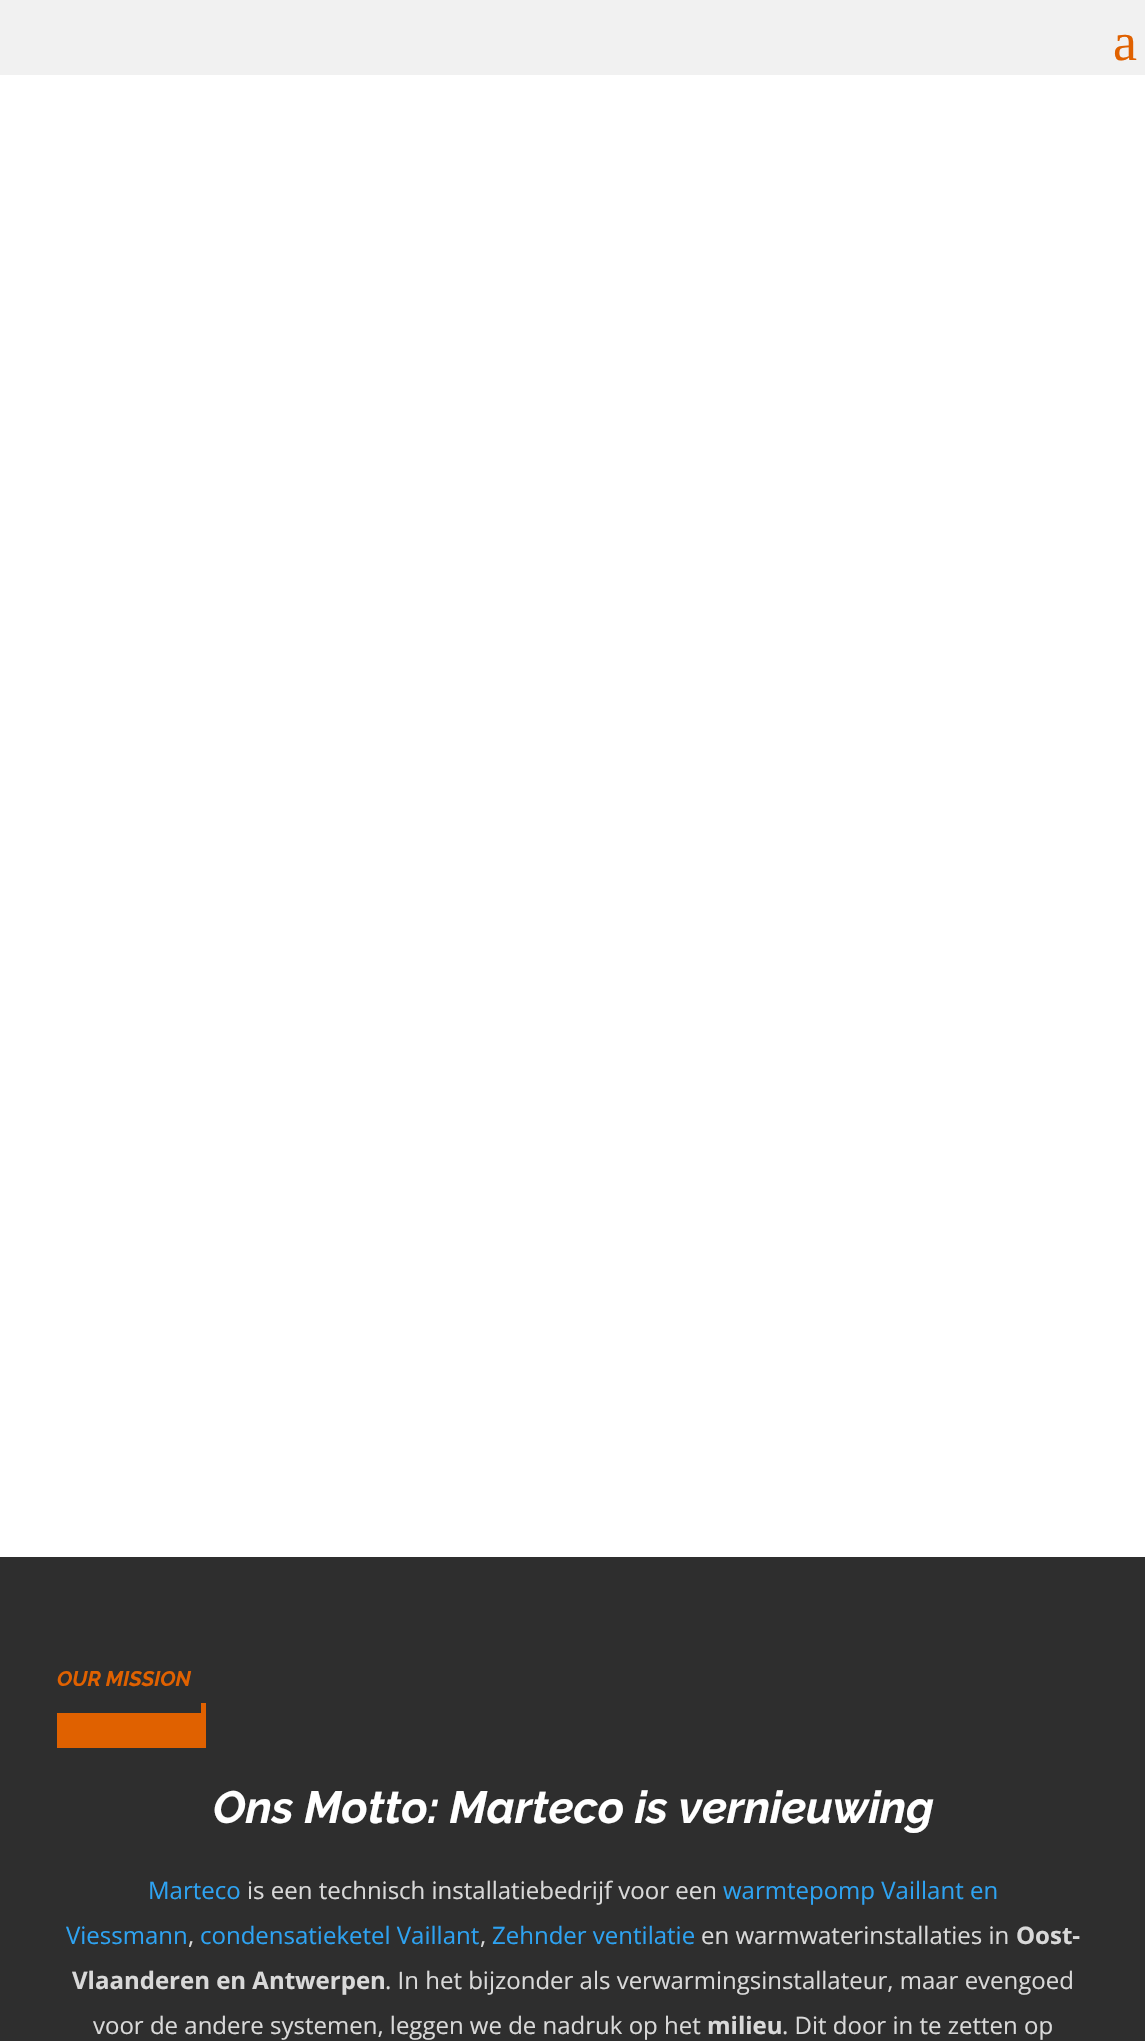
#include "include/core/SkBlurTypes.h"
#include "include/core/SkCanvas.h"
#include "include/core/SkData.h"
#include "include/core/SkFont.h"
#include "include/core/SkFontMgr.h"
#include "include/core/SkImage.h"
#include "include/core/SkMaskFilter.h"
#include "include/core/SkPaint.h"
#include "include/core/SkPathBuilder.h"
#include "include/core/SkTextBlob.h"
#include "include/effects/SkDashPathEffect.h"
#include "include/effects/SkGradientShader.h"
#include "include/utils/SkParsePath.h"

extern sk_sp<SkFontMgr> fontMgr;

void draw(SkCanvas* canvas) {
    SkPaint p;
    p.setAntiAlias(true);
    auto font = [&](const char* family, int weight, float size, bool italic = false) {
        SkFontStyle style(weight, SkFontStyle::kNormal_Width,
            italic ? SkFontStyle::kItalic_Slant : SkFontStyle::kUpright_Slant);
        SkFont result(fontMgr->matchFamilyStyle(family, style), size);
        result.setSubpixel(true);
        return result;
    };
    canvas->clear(0xFFFFFFFF);
    p.setColor(0xFFF1F1F1);
    canvas->drawRect(SkRect::MakeLTRB(0, 0, 1145, 75), p);
    auto font1 = font("Liberation Serif", 400, 54);
    p.setColor(0xFFE06100);
    canvas->drawString("a", 1113, 60, font1, p);
    p.setColor(0xFF2E2E2E);
    canvas->drawRect(SkRect::MakeLTRB(0, 1557, 1145, 2041), p);
    auto font2 = font("Raleway", 100, 21, true);
    p.setColor(0xFFE06100);
    canvas->drawString("OUR MISSION", 57, 1686, font2, p);
    canvas->drawRect(SkRect::MakeLTRB(57, 1713, 206, 1748), p);
    canvas->drawRect(SkRect::MakeLTRB(201, 1703, 206, 1718), p);
    auto font3 = font("Raleway", 100, 45, true);
    p.setColor(0xFFFFFFFF);
    canvas->drawString("Ons Motto: Marteco is vernieuwing", 213, 1823, font3, p);
    auto font4 = font("Open Sans", 400, 24);
    p.setColor(0xFF2EA3F2);
    canvas->drawString("Marteco", 148, 1899, font4, p);
    p.setColor(0xFFD9D9D9);
    canvas->drawString("is een technisch installatiebedrijf voor een", 247, 1899, font4, p);
    p.setColor(0xFF2EA3F2);
    canvas->drawString("warmtepomp Vaillant en", 723, 1899, font4, p);
    canvas->drawString("Viessmann", 66, 1944, font4, p);
    p.setColor(0xFFD9D9D9);
    canvas->drawString(",", 188, 1944, font4, p);
    p.setColor(0xFF2EA3F2);
    canvas->drawString("condensatieketel Vaillant", 200, 1944, font4, p);
    p.setColor(0xFFD9D9D9);
    canvas->drawString(",", 480, 1944, font4, p);
    p.setColor(0xFF2EA3F2);
    canvas->drawString("Zehnder ventilatie", 492, 1944, font4, p);
    p.setColor(0xFFD9D9D9);
    canvas->drawString("en warmwaterinstallaties in", 701, 1944, font4, p);
    auto font5 = font("Open Sans", 700, 24);
    canvas->drawString("Oost-", 1016, 1944, font5, p);
    canvas->drawString("Vlaanderen en Antwerpen", 72, 1989, font5, p);
    canvas->drawString(". In het bijzonder als verwarmingsinstallateur, maar evengoed", 385, 1989, font4, p);
    canvas->drawString("voor de andere systemen, leggen we de nadruk op het", 93, 2034, font4, p);
    canvas->drawString("milieu", 707, 2034, font5, p);
    canvas->drawString(". Dit door in te zetten op", 782, 2034, font4, p);
}
